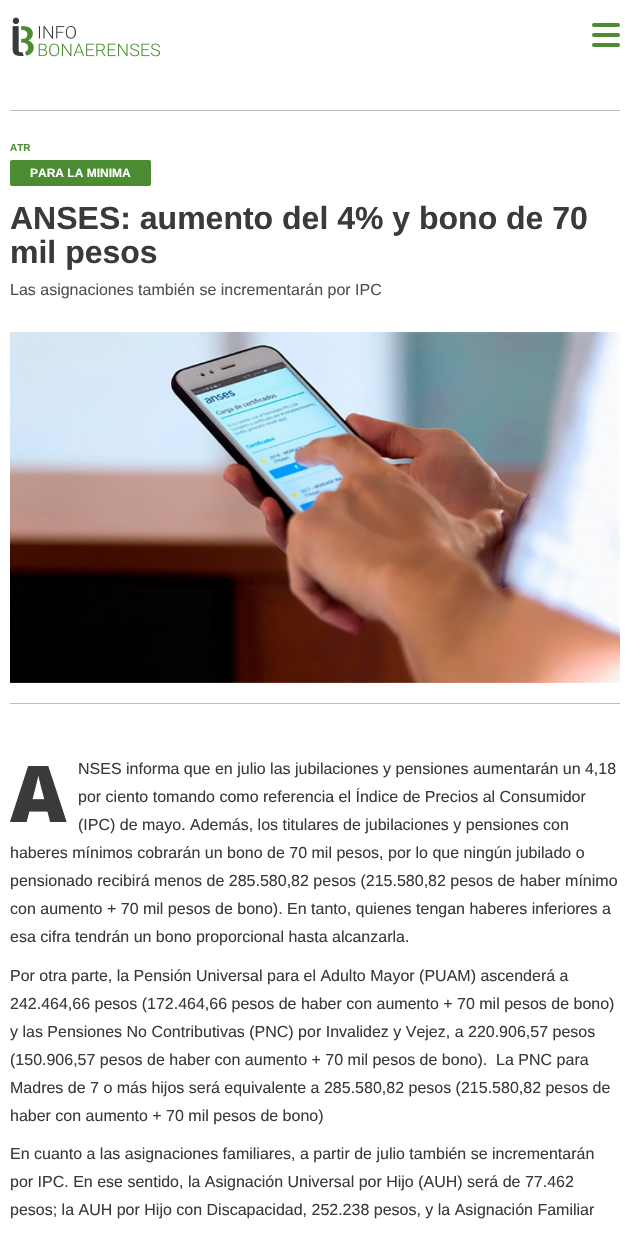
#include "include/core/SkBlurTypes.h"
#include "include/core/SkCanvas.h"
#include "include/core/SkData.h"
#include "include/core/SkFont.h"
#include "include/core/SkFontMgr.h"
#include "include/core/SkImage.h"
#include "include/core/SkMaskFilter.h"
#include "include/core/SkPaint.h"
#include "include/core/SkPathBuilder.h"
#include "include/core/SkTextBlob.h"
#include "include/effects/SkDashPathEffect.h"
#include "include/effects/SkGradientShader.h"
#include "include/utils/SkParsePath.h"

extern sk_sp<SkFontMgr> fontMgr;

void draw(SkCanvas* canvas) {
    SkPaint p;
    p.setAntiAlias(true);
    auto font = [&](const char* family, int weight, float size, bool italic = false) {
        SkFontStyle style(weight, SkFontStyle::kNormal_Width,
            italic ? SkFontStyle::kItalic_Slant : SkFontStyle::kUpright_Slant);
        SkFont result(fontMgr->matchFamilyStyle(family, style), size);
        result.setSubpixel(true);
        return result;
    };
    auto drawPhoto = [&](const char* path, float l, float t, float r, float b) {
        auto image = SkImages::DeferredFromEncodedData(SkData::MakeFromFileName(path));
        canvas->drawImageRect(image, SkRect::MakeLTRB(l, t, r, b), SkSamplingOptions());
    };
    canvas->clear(0xFFFFFFFF);
    drawPhoto("media/1.png", 12, 17, 160, 57);
    drawPhoto("media/2.png", 592, 23, 620, 47);
    p.setColor(0xFFBBBDBF);
    canvas->drawRect(SkRect::MakeLTRB(10, 110, 620, 111), p);
    auto font1 = font("Arimo", 700, 10);
    p.setColor(0xFF4B8C33);
    canvas->drawString("ATR", 10, 151, font1, p);
    canvas->drawRoundRect(SkRect::MakeLTRB(10, 160, 151, 186), 2, 2, p);
    auto font2 = font("Arimo", 700, 12);
    p.setColor(0xFFFFFFFF);
    canvas->drawString("PARA LA MINIMA", 30, 177, font2, p);
    auto font3 = font("Arimo", 700, 32);
    p.setColor(0xFF3A3A3A);
    canvas->drawString("ANSES: aumento del 4% y bono de 70", 10, 229, font3, p);
    canvas->drawString("mil pesos", 10, 263, font3, p);
    auto font4 = font("Arimo", 400, 16);
    p.setColor(0xFF515151);
    canvas->drawString("Las asignaciones también se incrementarán por IPC", 10, 295, font4, p);
    drawPhoto("media/3.png", 10, 332, 620, 683);
    p.setColor(0xFFBBBDBF);
    canvas->drawRect(SkRect::MakeLTRB(10, 703, 620, 704), p);
    auto font5 = font("Noto Sans", 900, 78);
    p.setColor(0xFF3A3A3A);
    canvas->drawString("A", 10, 822, font5, p);
    {
        const struct { const char* s; float x, y; } items[] = {
            {"NSES informa que en julio las jubilaciones y pensiones aumentarán un 4,18", 78, 774},
            {"por ciento tomando como referencia el Índice de Precios al Consumidor", 78, 802},
            {"(IPC) de mayo. Además, los titulares de jubilaciones y pensiones con", 78, 830},
            {"haberes mínimos cobrarán un bono de 70 mil pesos, por lo que ningún jubilado o", 10, 858},
            {"pensionado recibirá menos de 285.580,82 pesos (215.580,82 pesos de haber mínimo", 10, 886},
            {"con aumento + 70 mil pesos de bono). En tanto, quienes tengan haberes inferiores a", 10, 914},
            {"esa cifra tendrán un bono proporcional hasta alcanzarla.", 10, 942},
            {"Por otra parte, la Pensión Universal para el Adulto Mayor (PUAM) ascenderá a", 10, 981},
            {"242.464,66 pesos (172.464,66 pesos de haber con aumento + 70 mil pesos de bono)", 10, 1009},
            {"y las Pensiones No Contributivas (PNC) por Invalidez y Vejez, a 220.906,57 pesos", 10, 1037},
            {"(150.906,57 pesos de haber con aumento + 70 mil pesos de bono).  La PNC para", 10, 1065},
            {"Madres de 7 o más hijos será equivalente a 285.580,82 pesos (215.580,82 pesos de", 10, 1093},
            {"haber con aumento + 70 mil pesos de bono)", 10, 1121},
            {"En cuanto a las asignaciones familiares, a partir de julio también se incrementarán", 10, 1159},
            {"por IPC. En ese sentido, la Asignación Universal por Hijo (AUH) será de 77.462", 10, 1187},
            {"pesos; la AUH por Hijo con Discapacidad, 252.238 pesos, y la Asignación Familiar", 10, 1215},
        };
        for (auto [s, x, y] : items) {
            canvas->drawString(s, x, y, font4, p);
        }
    }
}
